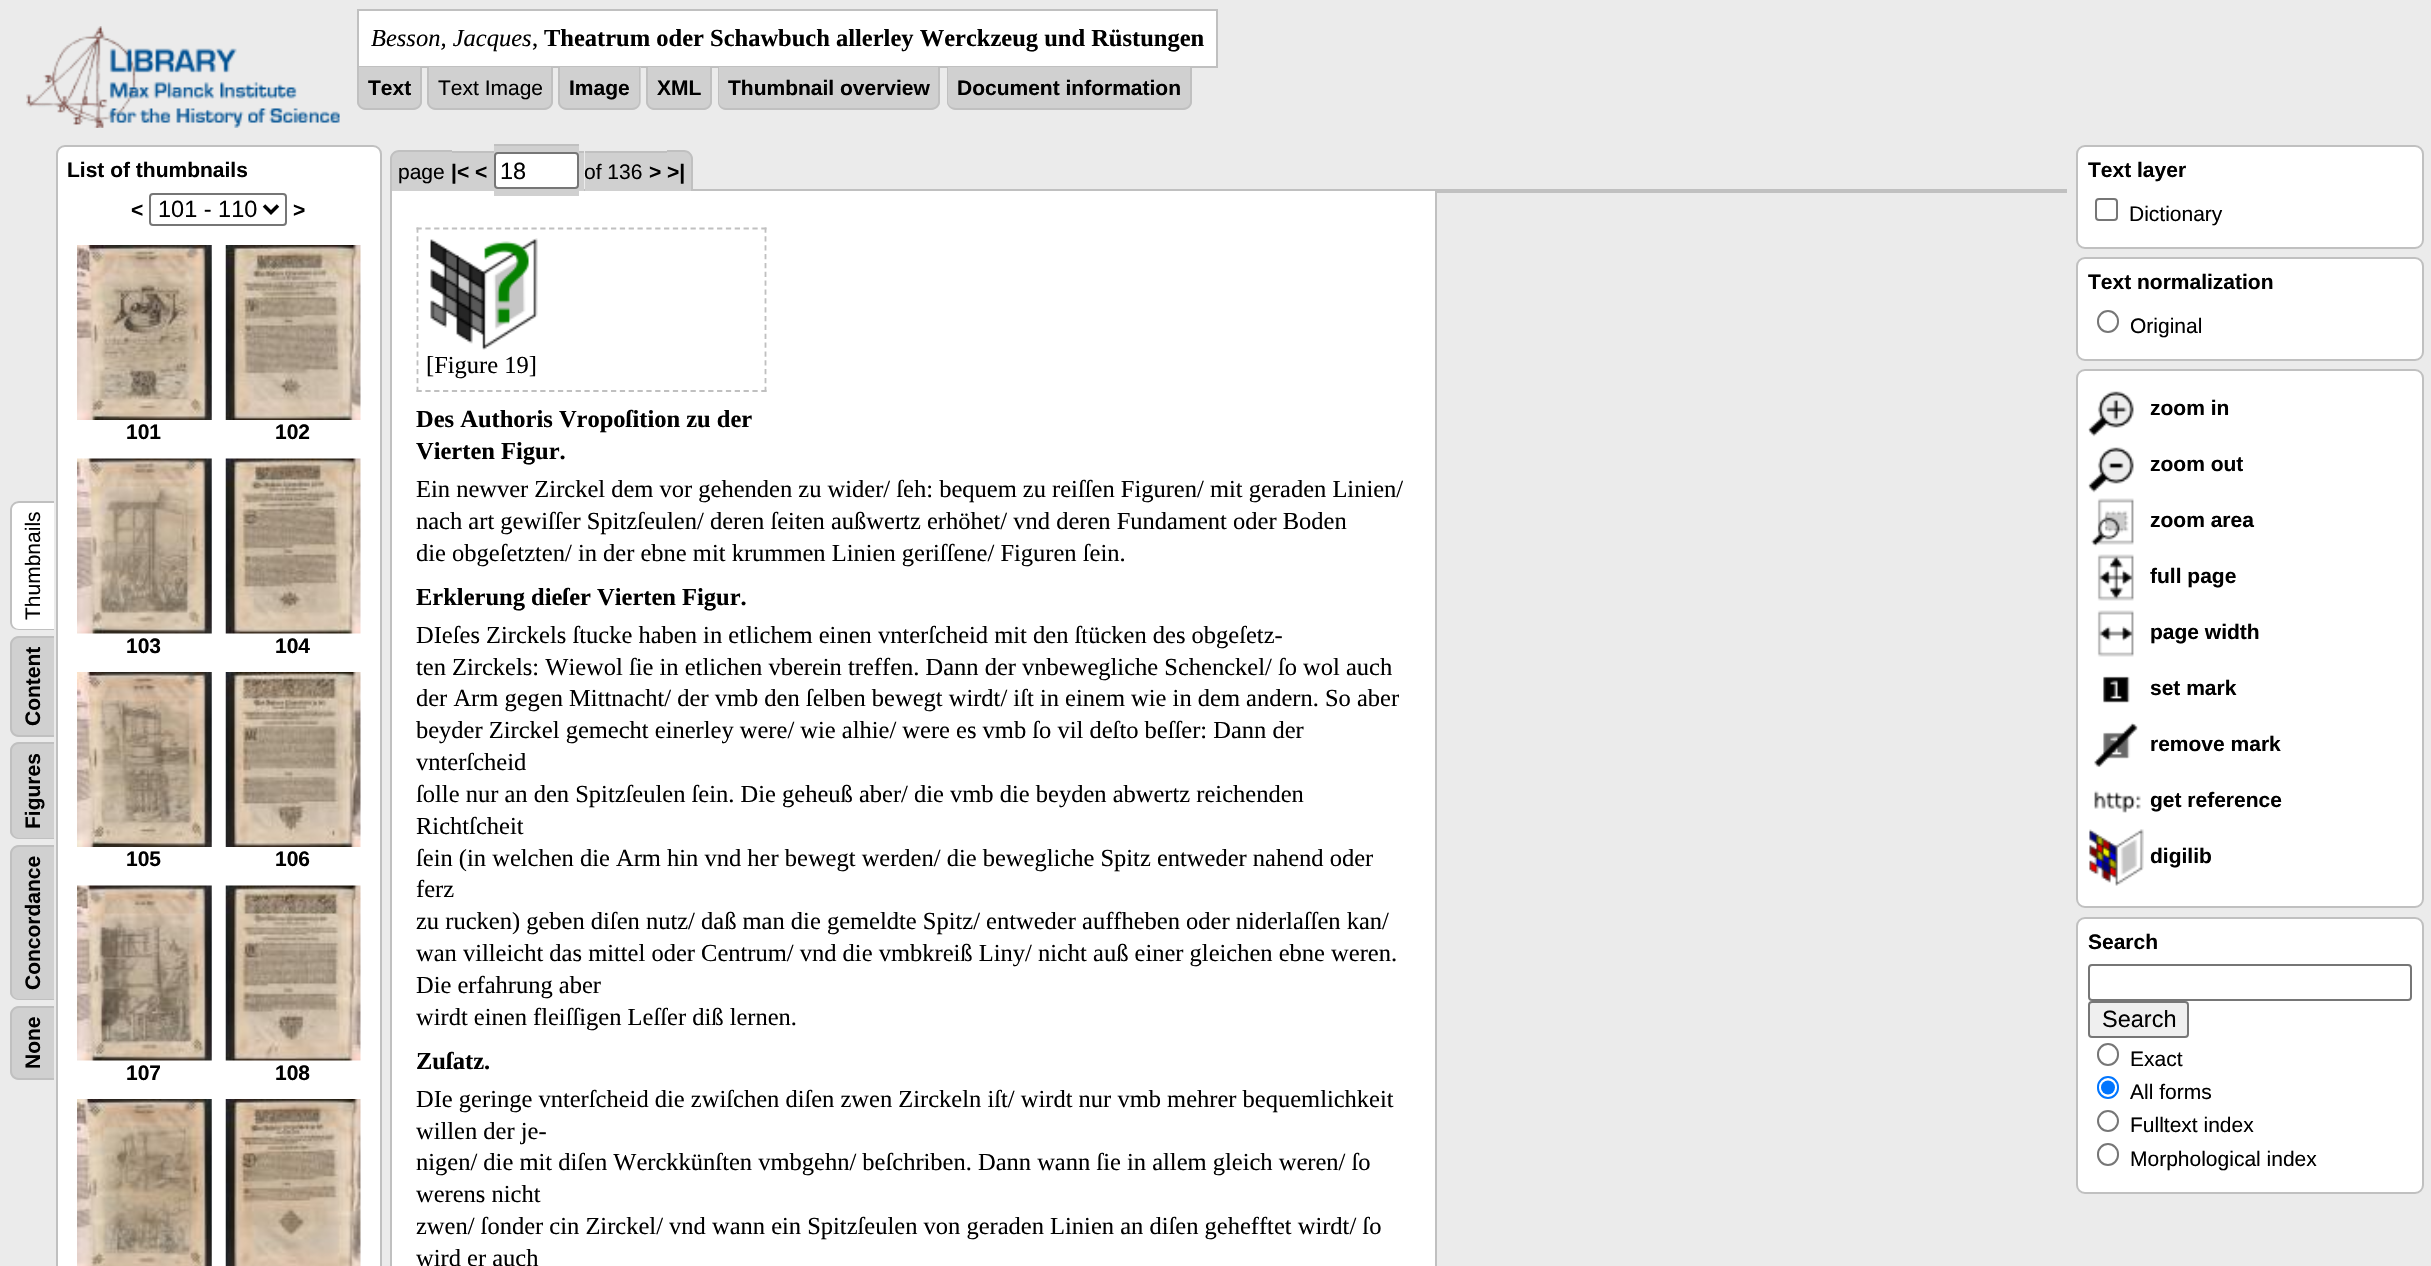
#include "include/core/SkBlurTypes.h"
#include "include/core/SkCanvas.h"
#include "include/core/SkData.h"
#include "include/core/SkFont.h"
#include "include/core/SkFontMgr.h"
#include "include/core/SkImage.h"
#include "include/core/SkMaskFilter.h"
#include "include/core/SkPaint.h"
#include "include/core/SkPathBuilder.h"
#include "include/core/SkTextBlob.h"
#include "include/effects/SkDashPathEffect.h"
#include "include/effects/SkGradientShader.h"
#include "include/utils/SkParsePath.h"

extern sk_sp<SkFontMgr> fontMgr;

void draw(SkCanvas* canvas) {
    SkPaint p;
    p.setAntiAlias(true);
    auto font = [&](const char* family, int weight, float size, bool italic = false) {
        SkFontStyle style(weight, SkFontStyle::kNormal_Width,
            italic ? SkFontStyle::kItalic_Slant : SkFontStyle::kUpright_Slant);
        SkFont result(fontMgr->matchFamilyStyle(family, style), size);
        result.setSubpixel(true);
        return result;
    };
    auto drawPhoto = [&](const char* path, float l, float t, float r, float b) {
        auto image = SkImages::DeferredFromEncodedData(SkData::MakeFromFileName(path));
        canvas->drawImageRect(image, SkRect::MakeLTRB(l, t, r, b), SkSamplingOptions());
    };
    canvas->clear(0xFFEBEBEB);
    drawPhoto("media/1.png", 26, 26, 340, 128);
    p.setColor(0xFFFFFFFF);
    canvas->drawRect(SkRect::MakeLTRB(358, 10, 1217, 67), p);
    p.setStyle(SkPaint::kStroke_Style);
    p.setStrokeWidth(2);
    p.setColor(0xFFC0C0C0);
    canvas->drawRect(SkRect::MakeLTRB(358, 10, 1217, 67), p);
    auto font1 = font("Liberation Serif", 400, 24.5f, true);
    p.setStyle(SkPaint::kFill_Style);
    p.setColor(0xFF000000);
    canvas->drawString("Besson, Jacques", 371, 46, font1, p);
    auto font2 = font("Liberation Serif", 400, 24.5f);
    canvas->drawString(",", 532, 46, font2, p);
    auto font3 = font("Liberation Serif", 700, 24.5f);
    canvas->drawString("Theatrum oder Schawbuch allerley Werckzeug und Rüstungen", 544, 46, font3, p);
    p.setColor(0xFFD0D0D0);
    canvas->drawPath(SkPathBuilder().moveTo(357, 67).lineTo(422, 67).lineTo(422, 101).cubicTo(422, 106, 418, 110, 413, 110).lineTo(366, 110).cubicTo(361, 110, 357, 106, 357, 101).close().detach(), p);
    p.setColor(0xFFC0C0C0);
    canvas->drawPath(SkPathBuilder(SkPathFillType::kEvenOdd).moveTo(357, 66).lineTo(422, 66).lineTo(422, 102).cubicTo(422, 106, 418, 110, 413, 110).lineTo(366, 110).cubicTo(361, 110, 357, 106, 357, 102).close().moveTo(359, 66).lineTo(420, 66).lineTo(420, 102).cubicTo(420, 105, 417, 108, 413, 108).lineTo(366, 108).cubicTo(362, 108, 359, 105, 359, 102).close().detach(), p);
    auto font4 = font("Liberation Sans", 700, 21);
    p.setColor(0xFF000000);
    canvas->drawString("Text", 368, 95, font4, p);
    p.setColor(0xFFD0D0D0);
    canvas->drawPath(SkPathBuilder().moveTo(427, 67).lineTo(553, 67).lineTo(553, 101).cubicTo(553, 106, 549, 110, 544, 110).lineTo(436, 110).cubicTo(431, 110, 427, 106, 427, 101).close().detach(), p);
    p.setColor(0xFFC0C0C0);
    canvas->drawPath(SkPathBuilder(SkPathFillType::kEvenOdd).moveTo(427, 66).lineTo(553, 66).lineTo(553, 102).cubicTo(553, 106, 549, 110, 544, 110).lineTo(436, 110).cubicTo(431, 110, 427, 106, 427, 102).close().moveTo(429, 66).lineTo(551, 66).lineTo(551, 102).cubicTo(551, 105, 548, 108, 544, 108).lineTo(436, 108).cubicTo(432, 108, 429, 105, 429, 102).close().detach(), p);
    auto font5 = font("Liberation Sans", 400, 21);
    p.setColor(0xFF000000);
    canvas->drawString("Text Image", 438, 95, font5, p);
    p.setColor(0xFFD0D0D0);
    canvas->drawPath(SkPathBuilder().moveTo(558, 67).lineTo(641, 67).lineTo(641, 101).cubicTo(641, 106, 637, 110, 632, 110).lineTo(567, 110).cubicTo(562, 110, 558, 106, 558, 101).close().detach(), p);
    p.setColor(0xFFC0C0C0);
    canvas->drawPath(SkPathBuilder(SkPathFillType::kEvenOdd).moveTo(558, 66).lineTo(640, 66).lineTo(640, 102).cubicTo(640, 106, 637, 110, 632, 110).lineTo(567, 110).cubicTo(562, 110, 558, 106, 558, 102).close().moveTo(560, 66).lineTo(639, 66).lineTo(639, 102).cubicTo(639, 105, 636, 108, 632, 108).lineTo(567, 108).cubicTo(563, 108, 560, 105, 560, 102).close().detach(), p);
    p.setColor(0xFF000000);
    canvas->drawString("Image", 569, 95, font4, p);
    p.setColor(0xFFD0D0D0);
    canvas->drawPath(SkPathBuilder().moveTo(646, 67).lineTo(712, 67).lineTo(712, 101).cubicTo(712, 106, 708, 110, 703, 110).lineTo(655, 110).cubicTo(650, 110, 646, 106, 646, 101).close().detach(), p);
    p.setColor(0xFFC0C0C0);
    canvas->drawPath(SkPathBuilder(SkPathFillType::kEvenOdd).moveTo(646, 66).lineTo(712, 66).lineTo(712, 102).cubicTo(712, 106, 708, 110, 704, 110).lineTo(654, 110).cubicTo(650, 110, 646, 106, 646, 102).close().moveTo(648, 66).lineTo(710, 66).lineTo(710, 102).cubicTo(710, 105, 707, 108, 704, 108).lineTo(654, 108).cubicTo(651, 108, 648, 105, 648, 102).close().detach(), p);
    p.setColor(0xFF000000);
    canvas->drawString("XML", 657, 95, font4, p);
    p.setColor(0xFFD0D0D0);
    canvas->drawPath(SkPathBuilder().moveTo(718, 67).lineTo(940, 67).lineTo(940, 101).cubicTo(940, 106, 936, 110, 931, 110).lineTo(727, 110).cubicTo(722, 110, 718, 106, 718, 101).close().detach(), p);
    p.setColor(0xFFC0C0C0);
    canvas->drawPath(SkPathBuilder(SkPathFillType::kEvenOdd).moveTo(718, 66).lineTo(940, 66).lineTo(940, 102).cubicTo(940, 106, 936, 110, 931, 110).lineTo(726, 110).cubicTo(721, 110, 718, 106, 718, 102).close().moveTo(719, 66).lineTo(938, 66).lineTo(938, 102).cubicTo(938, 105, 935, 108, 931, 108).lineTo(726, 108).cubicTo(722, 108, 719, 105, 719, 102).close().detach(), p);
    p.setColor(0xFF000000);
    canvas->drawString("Thumbnail overview", 728, 95, font4, p);
    p.setColor(0xFFD0D0D0);
    canvas->drawPath(SkPathBuilder().moveTo(947, 67).lineTo(1192, 67).lineTo(1192, 101).cubicTo(1192, 106, 1188, 110, 1183, 110).lineTo(956, 110).cubicTo(951, 110, 947, 106, 947, 101).close().detach(), p);
    p.setColor(0xFFC0C0C0);
    canvas->drawPath(SkPathBuilder(SkPathFillType::kEvenOdd).moveTo(947, 66).lineTo(1192, 66).lineTo(1192, 102).cubicTo(1192, 106, 1188, 110, 1183, 110).lineTo(956, 110).cubicTo(951, 110, 947, 106, 947, 102).close().moveTo(948, 66).lineTo(1190, 66).lineTo(1190, 102).cubicTo(1190, 105, 1187, 108, 1183, 108).lineTo(956, 108).cubicTo(952, 108, 948, 105, 948, 102).close().detach(), p);
    p.setColor(0xFF000000);
    canvas->drawString("Document information", 957, 95, font4, p);
    p.setColor(0xFFFFFFFF);
    canvas->drawPath(SkPathBuilder().moveTo(10, 622).lineTo(10, 510).cubicTo(10, 505, 14, 501, 19, 501).lineTo(54, 501).lineTo(54, 630).lineTo(19, 630).cubicTo(14, 630, 10, 627, 10, 622).close().detach(), p);
    p.setColor(0xFFC0C0C0);
    canvas->drawPath(SkPathBuilder(SkPathFillType::kEvenOdd).moveTo(10, 622).lineTo(10, 510).cubicTo(10, 505, 14, 501, 19, 501).lineTo(54, 501).lineTo(54, 630).lineTo(19, 630).cubicTo(14, 630, 10, 627, 10, 622).close().moveTo(12, 622).lineTo(12, 510).cubicTo(12, 506, 15, 503, 19, 503).lineTo(54, 503).lineTo(54, 629).lineTo(19, 629).cubicTo(15, 629, 12, 626, 12, 622).close().detach(), p);
    p.setColor(0xFF000000);
    canvas->save();
    canvas->rotate(-90, 40, 620);
    canvas->drawString("Thumbnails", 40, 620, font5, p);
    canvas->restore();
    p.setColor(0xFFD0D0D0);
    canvas->drawPath(SkPathBuilder().moveTo(10, 728).lineTo(10, 645).cubicTo(10, 640, 14, 636, 19, 636).lineTo(54, 636).lineTo(54, 737).lineTo(19, 737).cubicTo(14, 737, 10, 733, 10, 728).close().detach(), p);
    p.setColor(0xFFC0C0C0);
    canvas->drawPath(SkPathBuilder(SkPathFillType::kEvenOdd).moveTo(10, 728).lineTo(10, 645).cubicTo(10, 640, 14, 636, 19, 636).lineTo(54, 636).lineTo(54, 737).lineTo(19, 737).cubicTo(14, 737, 10, 733, 10, 728).close().moveTo(12, 728).lineTo(12, 645).cubicTo(12, 641, 15, 638, 19, 638).lineTo(54, 638).lineTo(54, 735).lineTo(19, 735).cubicTo(15, 735, 12, 732, 12, 728).close().detach(), p);
    p.setColor(0xFF000000);
    canvas->save();
    canvas->rotate(-90, 40, 726);
    canvas->drawString("Content", 40, 726, font4, p);
    canvas->restore();
    p.setColor(0xFFD0D0D0);
    canvas->drawPath(SkPathBuilder().moveTo(10, 831).lineTo(10, 751).cubicTo(10, 746, 14, 742, 19, 742).lineTo(54, 742).lineTo(54, 839).lineTo(19, 839).cubicTo(14, 839, 10, 835, 10, 831).close().detach(), p);
    p.setColor(0xFFC0C0C0);
    canvas->drawPath(SkPathBuilder(SkPathFillType::kEvenOdd).moveTo(10, 831).lineTo(10, 751).cubicTo(10, 746, 14, 742, 19, 742).lineTo(54, 742).lineTo(54, 839).lineTo(19, 839).cubicTo(14, 839, 10, 835, 10, 831).close().moveTo(12, 831).lineTo(12, 751).cubicTo(12, 747, 15, 744, 19, 744).lineTo(54, 744).lineTo(54, 838).lineTo(19, 838).cubicTo(15, 838, 12, 834, 12, 831).close().detach(), p);
    p.setColor(0xFF000000);
    canvas->save();
    canvas->rotate(-90, 40, 829);
    canvas->drawString("Figures", 40, 829, font4, p);
    canvas->restore();
    p.setColor(0xFFD0D0D0);
    canvas->drawPath(SkPathBuilder().moveTo(10, 992).lineTo(10, 854).cubicTo(10, 849, 14, 845, 19, 845).lineTo(54, 845).lineTo(54, 1000).lineTo(19, 1000).cubicTo(14, 1000, 10, 996, 10, 992).close().detach(), p);
    p.setColor(0xFFC0C0C0);
    canvas->drawPath(SkPathBuilder(SkPathFillType::kEvenOdd).moveTo(10, 992).lineTo(10, 854).cubicTo(10, 849, 14, 845, 19, 845).lineTo(54, 845).lineTo(54, 1000).lineTo(19, 1000).cubicTo(14, 1000, 10, 996, 10, 992).close().moveTo(12, 992).lineTo(12, 854).cubicTo(12, 850, 15, 847, 19, 847).lineTo(54, 847).lineTo(54, 999).lineTo(19, 999).cubicTo(15, 999, 12, 996, 12, 992).close().detach(), p);
    p.setColor(0xFF000000);
    canvas->save();
    canvas->rotate(-90, 40, 990);
    canvas->drawString("Concordance", 40, 990, font4, p);
    canvas->restore();
    p.setColor(0xFFD0D0D0);
    canvas->drawPath(SkPathBuilder().moveTo(10, 1071).lineTo(10, 1015).cubicTo(10, 1010, 14, 1006, 19, 1006).lineTo(54, 1006).lineTo(54, 1080).lineTo(19, 1080).cubicTo(14, 1080, 10, 1076, 10, 1071).close().detach(), p);
    p.setColor(0xFFC0C0C0);
    canvas->drawPath(SkPathBuilder(SkPathFillType::kEvenOdd).moveTo(10, 1071).lineTo(10, 1015).cubicTo(10, 1010, 14, 1006, 19, 1006).lineTo(54, 1006).lineTo(54, 1080).lineTo(19, 1080).cubicTo(14, 1080, 10, 1076, 10, 1071).close().moveTo(12, 1071).lineTo(12, 1015).cubicTo(12, 1011, 15, 1008, 19, 1008).lineTo(54, 1008).lineTo(54, 1078).lineTo(19, 1078).cubicTo(15, 1078, 12, 1075, 12, 1071).close().detach(), p);
    p.setColor(0xFF000000);
    canvas->save();
    canvas->rotate(-90, 40, 1069);
    canvas->drawString("None", 40, 1069, font4, p);
    canvas->restore();
    p.setColor(0xFFFFFFFF);
    canvas->drawRoundRect(SkRect::MakeLTRB(57, 146, 381, 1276), 8, 8, p);
    p.setStyle(SkPaint::kStroke_Style);
    p.setColor(0xFFC0C0C0);
    canvas->drawRoundRect(SkRect::MakeLTRB(57, 146, 381, 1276), 8, 8, p);
    p.setStyle(SkPaint::kFill_Style);
    p.setColor(0xFF000000);
    canvas->drawString("List of thumbnails", 67, 177, font4, p);
    canvas->drawString("<", 131, 217, font4, p);
    p.setStyle(SkPaint::kStroke_Style);
    p.setColor(0xFF767676);
    canvas->drawRoundRect(SkRect::MakeLTRB(150, 194, 286, 225), 3, 3, p);
    p.setStrokeWidth(3.5f);
    p.setColor(0xFF000000);
    canvas->drawPath(SkPathBuilder().moveTo(264, 205.5f).lineTo(271, 212.5f).lineTo(278, 205.5f).detach(), p);
    auto font6 = font("Liberation Sans", 400, 23.5f);
    p.setStyle(SkPaint::kFill_Style);
    canvas->drawString("101 - 110", 158, 217, font6, p);
    canvas->drawString(">", 293, 217, font4, p);
    drawPhoto("media/2.png", 77, 245, 212, 420);
    canvas->drawString("101", 126, 439, font4, p);
    drawPhoto("media/3.png", 225, 245, 361, 420);
    canvas->drawString("102", 275, 439, font4, p);
    drawPhoto("media/4.png", 77, 458, 212, 634);
    canvas->drawString("103", 126, 653, font4, p);
    drawPhoto("media/5.png", 225, 458, 361, 634);
    canvas->drawString("104", 275, 653, font4, p);
    drawPhoto("media/6.png", 77, 672, 212, 847);
    canvas->drawString("105", 126, 866, font4, p);
    drawPhoto("media/7.png", 225, 672, 361, 847);
    canvas->drawString("106", 275, 866, font4, p);
    drawPhoto("media/8.png", 77, 885, 212, 1061);
    canvas->drawString("107", 126, 1080, font4, p);
    drawPhoto("media/9.png", 225, 885, 361, 1061);
    canvas->drawString("108", 275, 1080, font4, p);
    drawPhoto("media/10.png", 77, 1099, 212, 1266);
    drawPhoto("media/11.png", 225, 1099, 361, 1266);
    p.setColor(0xFFFFFFFF);
    canvas->drawRect(SkRect::MakeLTRB(391, 190, 1436, 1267), p);
    p.setStyle(SkPaint::kStroke_Style);
    p.setStrokeWidth(2);
    p.setColor(0xFFC0C0C0);
    canvas->drawRect(SkRect::MakeLTRB(391, 190, 1436, 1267), p);
    p.setStyle(SkPaint::kFill_Style);
    p.setColor(0xFFD0D0D0);
    canvas->drawPath(SkPathBuilder().moveTo(399, 151).lineTo(452, 151).lineTo(452, 191).lineTo(390, 191).lineTo(390, 160).cubicTo(390, 155, 394, 151, 399, 151).close().detach(), p);
    p.setColor(0xFFC0C0C0);
    canvas->drawPath(SkPathBuilder(SkPathFillType::kEvenOdd).moveTo(399, 150).lineTo(452, 150).lineTo(452, 191).lineTo(390, 191).lineTo(390, 159).cubicTo(390, 154, 394, 150, 399, 150).close().moveTo(399, 152).lineTo(452, 152).lineTo(452, 191).lineTo(392, 191).lineTo(392, 159).cubicTo(392, 155, 395, 152, 399, 152).close().detach(), p);
    {
        const struct { float l, t, r, b; SkColor color; } items[] = {
            {452, 153, 469, 191, 0xFFD0D0D0},
            {452, 151, 469, 153, 0xFFC0C0C0},
            {469, 151, 474, 191, 0xFFD0D0D0},
            {469, 151, 487, 153, 0xFFC0C0C0},
            {474, 153, 487, 191, 0xFFD0D0D0},
            {487, 151, 494, 191, 0xFFD0D0D0},
            {487, 151, 494, 153, 0xFFC0C0C0},
            {494, 146, 579, 196, 0xFFD0D0D0},
            {494, 144, 579, 146, 0xFFC0C0C0},
            {579, 151, 584, 191, 0xFFD0D0D0},
            {579, 151, 584, 153, 0xFFC0C0C0},
            {585, 153, 662, 191, 0xFFD0D0D0},
            {585, 151, 662, 153, 0xFFC0C0C0},
            {662, 151, 667, 191, 0xFFD0D0D0},
            {662, 151, 667, 153, 0xFFC0C0C0},
        };
        for (auto [l, t, r, b, color] : items) {
            p.setColor(color);
            canvas->drawRect(SkRect::MakeLTRB(l, t, r, b), p);
        }
    }
    p.setColor(0xFFD0D0D0);
    canvas->drawPath(SkPathBuilder().moveTo(667, 151).lineTo(684, 151).cubicTo(689, 151, 693, 155, 693, 160).lineTo(693, 191).lineTo(667, 191).close().detach(), p);
    p.setColor(0xFFC0C0C0);
    canvas->drawPath(SkPathBuilder(SkPathFillType::kEvenOdd).moveTo(667, 150).lineTo(684, 150).cubicTo(689, 150, 693, 154, 693, 159).lineTo(693, 191).lineTo(667, 191).close().moveTo(667, 152).lineTo(684, 152).cubicTo(688, 152, 691, 155, 691, 159).lineTo(691, 191).lineTo(667, 191).close().detach(), p);
    p.setColor(0xFF000000);
    canvas->drawString("page", 398, 179, font5, p);
    canvas->drawString("|< <", 451, 179, font4, p);
    p.setColor(0xFFFFFFFF);
    canvas->drawRoundRect(SkRect::MakeLTRB(495, 153, 578, 188), 3, 3, p);
    p.setStyle(SkPaint::kStroke_Style);
    p.setColor(0xFF767676);
    canvas->drawRoundRect(SkRect::MakeLTRB(495, 153, 578, 188), 3, 3, p);
    p.setStyle(SkPaint::kFill_Style);
    p.setColor(0xFF000000);
    canvas->drawString("18", 500, 179, font6, p);
    canvas->drawString("of 136", 584, 179, font5, p);
    canvas->drawString("> >|", 649, 179, font4, p);
    p.setColor(0xFFC0C0C0);
    canvas->drawRect(SkRect::MakeLTRB(1437, 189, 2067, 193), p);
    p.setStyle(SkPaint::kStroke_Style);
    p.setStrokeWidth(1.8f);
    p.setPathEffect(SkDashPathEffect::Make({{5.25f, 3.59f}}, 0));
    canvas->drawPath(SkPathBuilder().moveTo(416.5f, 228.5f).lineTo(766.5f, 228.5f).detach(), p);
    p.setPathEffect(nullptr);
    p.setPathEffect(SkDashPathEffect::Make({{5.25f, 3.6f}}, 0));
    canvas->drawPath(SkPathBuilder().moveTo(765.5f, 227.5f).lineTo(765.5f, 392).detach(), p);
    p.setPathEffect(nullptr);
    p.setPathEffect(SkDashPathEffect::Make({{5.25f, 3.59f}}, 0));
    canvas->drawPath(SkPathBuilder().moveTo(416.5f, 391).lineTo(766.5f, 391).detach(), p);
    p.setPathEffect(nullptr);
    p.setPathEffect(SkDashPathEffect::Make({{5.25f, 3.6f}}, 0));
    canvas->drawPath(SkPathBuilder().moveTo(417.5f, 227.5f).lineTo(417.5f, 392).detach(), p);
    p.setPathEffect(nullptr);
    drawPhoto("media/12.png", 430, 238, 538, 350);
    p.setStyle(SkPaint::kFill_Style);
    p.setColor(0xFF000000);
    canvas->drawString("[Figure 19]", 426, 373, font2, p);
    canvas->drawString("Des Authoris Vropoſition zu der", 416, 427, font3, p);
    canvas->drawString("Vierten Figur.", 416, 459, font3, p);
    {
        const struct { const char* s; float x, y; } items[] = {
            {"Ein newver Zirckel dem vor gehenden zu wider/ ſeh: bequem zu reiſſen Figuren/ mit geraden Linien/", 416, 497},
            {"nach art gewiſſer Spitzſeulen/ deren ſeiten außwertz erhöhet/ vnd deren Fundament oder Boden", 416, 529},
            {"die obgeſetzten/ in der ebne mit krummen Linien geriſſene/ Figuren ſein.", 416, 561},
        };
        for (auto [s, x, y] : items) {
            canvas->drawString(s, x, y, font2, p);
        }
    }
    canvas->drawString("Erklerung dieſer Vierten Figur.", 416, 605, font3, p);
    {
        const struct { const char* s; float x, y; } items[] = {
            {"DIeſes Zirckels ſtucke haben in etlichem einen vnterſcheid mit den ſtücken des obgeſetz-", 416, 643},
            {"ten Zirckels: Wiewol ſie in etlichen vberein treffen. Dann der vnbewegliche Schenckel/ ſo wol auch", 416, 675},
            {"der Arm gegen Mittnacht/ der vmb den ſelben bewegt wirdt/ iſt in einem wie in dem andern. So aber", 416, 706},
            {"beyder Zirckel gemecht einerley were/ wie alhie/ were es vmb ſo vil deſto beſſer: Dann der", 416, 738},
            {"vnterſcheid", 416, 770},
            {"ſolle nur an den Spitzſeulen ſein. Die geheuß aber/ die vmb die beyden abwertz reichenden", 416, 802},
            {"Richtſcheit", 416, 834},
            {"ſein (in welchen die Arm hin vnd her bewegt werden/ die bewegliche Spitz entweder nahend oder", 416, 866},
            {"ferz", 416, 897},
            {"zu rucken) geben diſen nutz/ daß man die gemeldte Spitz/ entweder auffheben oder niderlaſſen kan/", 416, 929},
            {"wan villeicht das mittel oder Centrum/ vnd die vmbkreiß Liny/ nicht auß einer gleichen ebne weren.", 416, 961},
            {"Die erfahrung aber", 416, 993},
            {"wirdt einen fleiſſigen Leſſer diß lernen.", 416, 1025},
        };
        for (auto [s, x, y] : items) {
            canvas->drawString(s, x, y, font2, p);
        }
    }
    canvas->drawString("Zuſatz.", 416, 1069, font3, p);
    {
        const struct { const char* s; float x, y; } items[] = {
            {"DIe geringe vnterſcheid die zwiſchen diſen zwen Zirckeln iſt/ wirdt nur vmb mehrer bequemlichkeit", 416, 1107},
            {"willen der je-", 416, 1139},
            {"nigen/ die mit diſen Werckkünſten vmbgehn/ beſchriben. Dann wann ſie in allem gleich weren/ ſo", 416, 1170},
            {"werens nicht", 416, 1202},
            {"zwen/ ſonder cin Zirckel/ vnd wann ein Spitzſeulen von geraden Linien an diſen gehefftet wirdt/ ſo", 416, 1234},
            {"wird er auch", 416, 1266},
        };
        for (auto [s, x, y] : items) {
            canvas->drawString(s, x, y, font2, p);
        }
    }
    p.setColor(0xFFFFFFFF);
    canvas->drawRoundRect(SkRect::MakeLTRB(2077, 146, 2423, 248), 8, 8, p);
    p.setStyle(SkPaint::kStroke_Style);
    p.setStrokeWidth(2);
    p.setColor(0xFFC0C0C0);
    canvas->drawRoundRect(SkRect::MakeLTRB(2077, 146, 2423, 248), 8, 8, p);
    p.setStyle(SkPaint::kFill_Style);
    p.setColor(0xFF000000);
    canvas->drawString("Text layer", 2088, 177, font4, p);
    p.setStyle(SkPaint::kStroke_Style);
    p.setColor(0xFF767676);
    canvas->drawRoundRect(SkRect::MakeLTRB(2096, 199, 2117, 220), 3, 3, p);
    p.setStyle(SkPaint::kFill_Style);
    p.setColor(0xFF000000);
    canvas->drawString("Dictionary", 2129, 221, font5, p);
    p.setColor(0xFFFFFFFF);
    canvas->drawRoundRect(SkRect::MakeLTRB(2077, 258, 2423, 360), 8, 8, p);
    p.setStyle(SkPaint::kStroke_Style);
    p.setColor(0xFFC0C0C0);
    canvas->drawRoundRect(SkRect::MakeLTRB(2077, 258, 2423, 360), 8, 8, p);
    p.setStyle(SkPaint::kFill_Style);
    p.setColor(0xFF000000);
    canvas->drawString("Text normalization", 2088, 289, font4, p);
    p.setStyle(SkPaint::kStroke_Style);
    p.setColor(0xFF767676);
    canvas->drawRoundRect(SkRect::MakeLTRB(2098, 311, 2118, 332), 10, 10, p);
    p.setStyle(SkPaint::kFill_Style);
    p.setColor(0xFF000000);
    canvas->drawString("Original", 2130, 333, font5, p);
    p.setColor(0xFFFFFFFF);
    canvas->drawRoundRect(SkRect::MakeLTRB(2077, 370, 2423, 907), 8, 8, p);
    p.setStyle(SkPaint::kStroke_Style);
    p.setColor(0xFFC0C0C0);
    canvas->drawRoundRect(SkRect::MakeLTRB(2077, 370, 2423, 907), 8, 8, p);
    drawPhoto("media/13.png", 2088, 391, 2134, 437);
    p.setStyle(SkPaint::kFill_Style);
    p.setColor(0xFF000000);
    canvas->drawString("zoom in", 2150, 415, font4, p);
    drawPhoto("media/14.png", 2088, 447, 2134, 493);
    canvas->drawString("zoom out", 2150, 471, font4, p);
    drawPhoto("media/15.png", 2091, 498, 2134, 547);
    canvas->drawString("zoom area", 2150, 527, font4, p);
    drawPhoto("media/16.png", 2097, 554, 2134, 601);
    canvas->drawString("full page", 2150, 583, font4, p);
    drawPhoto("media/17.png", 2097, 610, 2134, 657);
    canvas->drawString("page width", 2150, 639, font4, p);
    drawPhoto("media/18.png", 2103, 676, 2130, 703);
    canvas->drawString("set mark", 2150, 695, font4, p);
    drawPhoto("media/19.png", 2094, 722, 2138, 767);
    canvas->drawString("remove mark", 2150, 751, font4, p);
    drawPhoto("media/20.png", 2094, 790, 2141, 813);
    canvas->drawString("get reference", 2150, 807, font4, p);
    drawPhoto("media/21.png", 2089, 829, 2144, 886);
    canvas->drawString("digilib", 2150, 863, font4, p);
    p.setColor(0xFFFFFFFF);
    canvas->drawRoundRect(SkRect::MakeLTRB(2077, 918, 2423, 1193), 8, 8, p);
    p.setStyle(SkPaint::kStroke_Style);
    p.setColor(0xFFC0C0C0);
    canvas->drawRoundRect(SkRect::MakeLTRB(2077, 918, 2423, 1193), 8, 8, p);
    p.setStyle(SkPaint::kFill_Style);
    p.setColor(0xFF000000);
    canvas->drawString("Search", 2088, 949, font4, p);
    p.setStyle(SkPaint::kStroke_Style);
    p.setColor(0xFF767676);
    canvas->drawRoundRect(SkRect::MakeLTRB(2089, 965, 2411, 1000), 3, 3, p);
    p.setStyle(SkPaint::kFill_Style);
    p.setColor(0xFFEFEFEF);
    canvas->drawRoundRect(SkRect::MakeLTRB(2089, 1002, 2188, 1037), 3, 3, p);
    p.setStyle(SkPaint::kStroke_Style);
    p.setColor(0xFF767676);
    canvas->drawRoundRect(SkRect::MakeLTRB(2089, 1002, 2188, 1037), 3, 3, p);
    p.setStyle(SkPaint::kFill_Style);
    p.setColor(0xFF000000);
    canvas->drawString("Search", 2102, 1027, font6, p);
    p.setStyle(SkPaint::kStroke_Style);
    p.setColor(0xFF767676);
    canvas->drawRoundRect(SkRect::MakeLTRB(2098, 1044, 2118, 1065), 10, 10, p);
    p.setStyle(SkPaint::kFill_Style);
    p.setColor(0xFF000000);
    canvas->drawString("Exact", 2130, 1066, font5, p);
    p.setStyle(SkPaint::kStroke_Style);
    p.setColor(0xFF0075FF);
    canvas->drawRoundRect(SkRect::MakeLTRB(2098, 1077, 2118, 1098), 10, 10, p);
    p.setStyle(SkPaint::kFill_Style);
    canvas->drawCircle(2108, 1087.5f, 7, p);
    p.setColor(0xFF000000);
    canvas->drawString("All forms", 2130, 1099, font5, p);
    p.setStyle(SkPaint::kStroke_Style);
    p.setColor(0xFF767676);
    canvas->drawCircle(2108, 1121, 10, p);
    p.setStyle(SkPaint::kFill_Style);
    p.setColor(0xFF000000);
    canvas->drawString("Fulltext index", 2130, 1132, font5, p);
    p.setStyle(SkPaint::kStroke_Style);
    p.setColor(0xFF767676);
    canvas->drawRoundRect(SkRect::MakeLTRB(2098, 1144, 2118, 1165), 10, 10, p);
    p.setStyle(SkPaint::kFill_Style);
    p.setColor(0xFF000000);
    canvas->drawString("Morphological index", 2130, 1166, font5, p);
}
